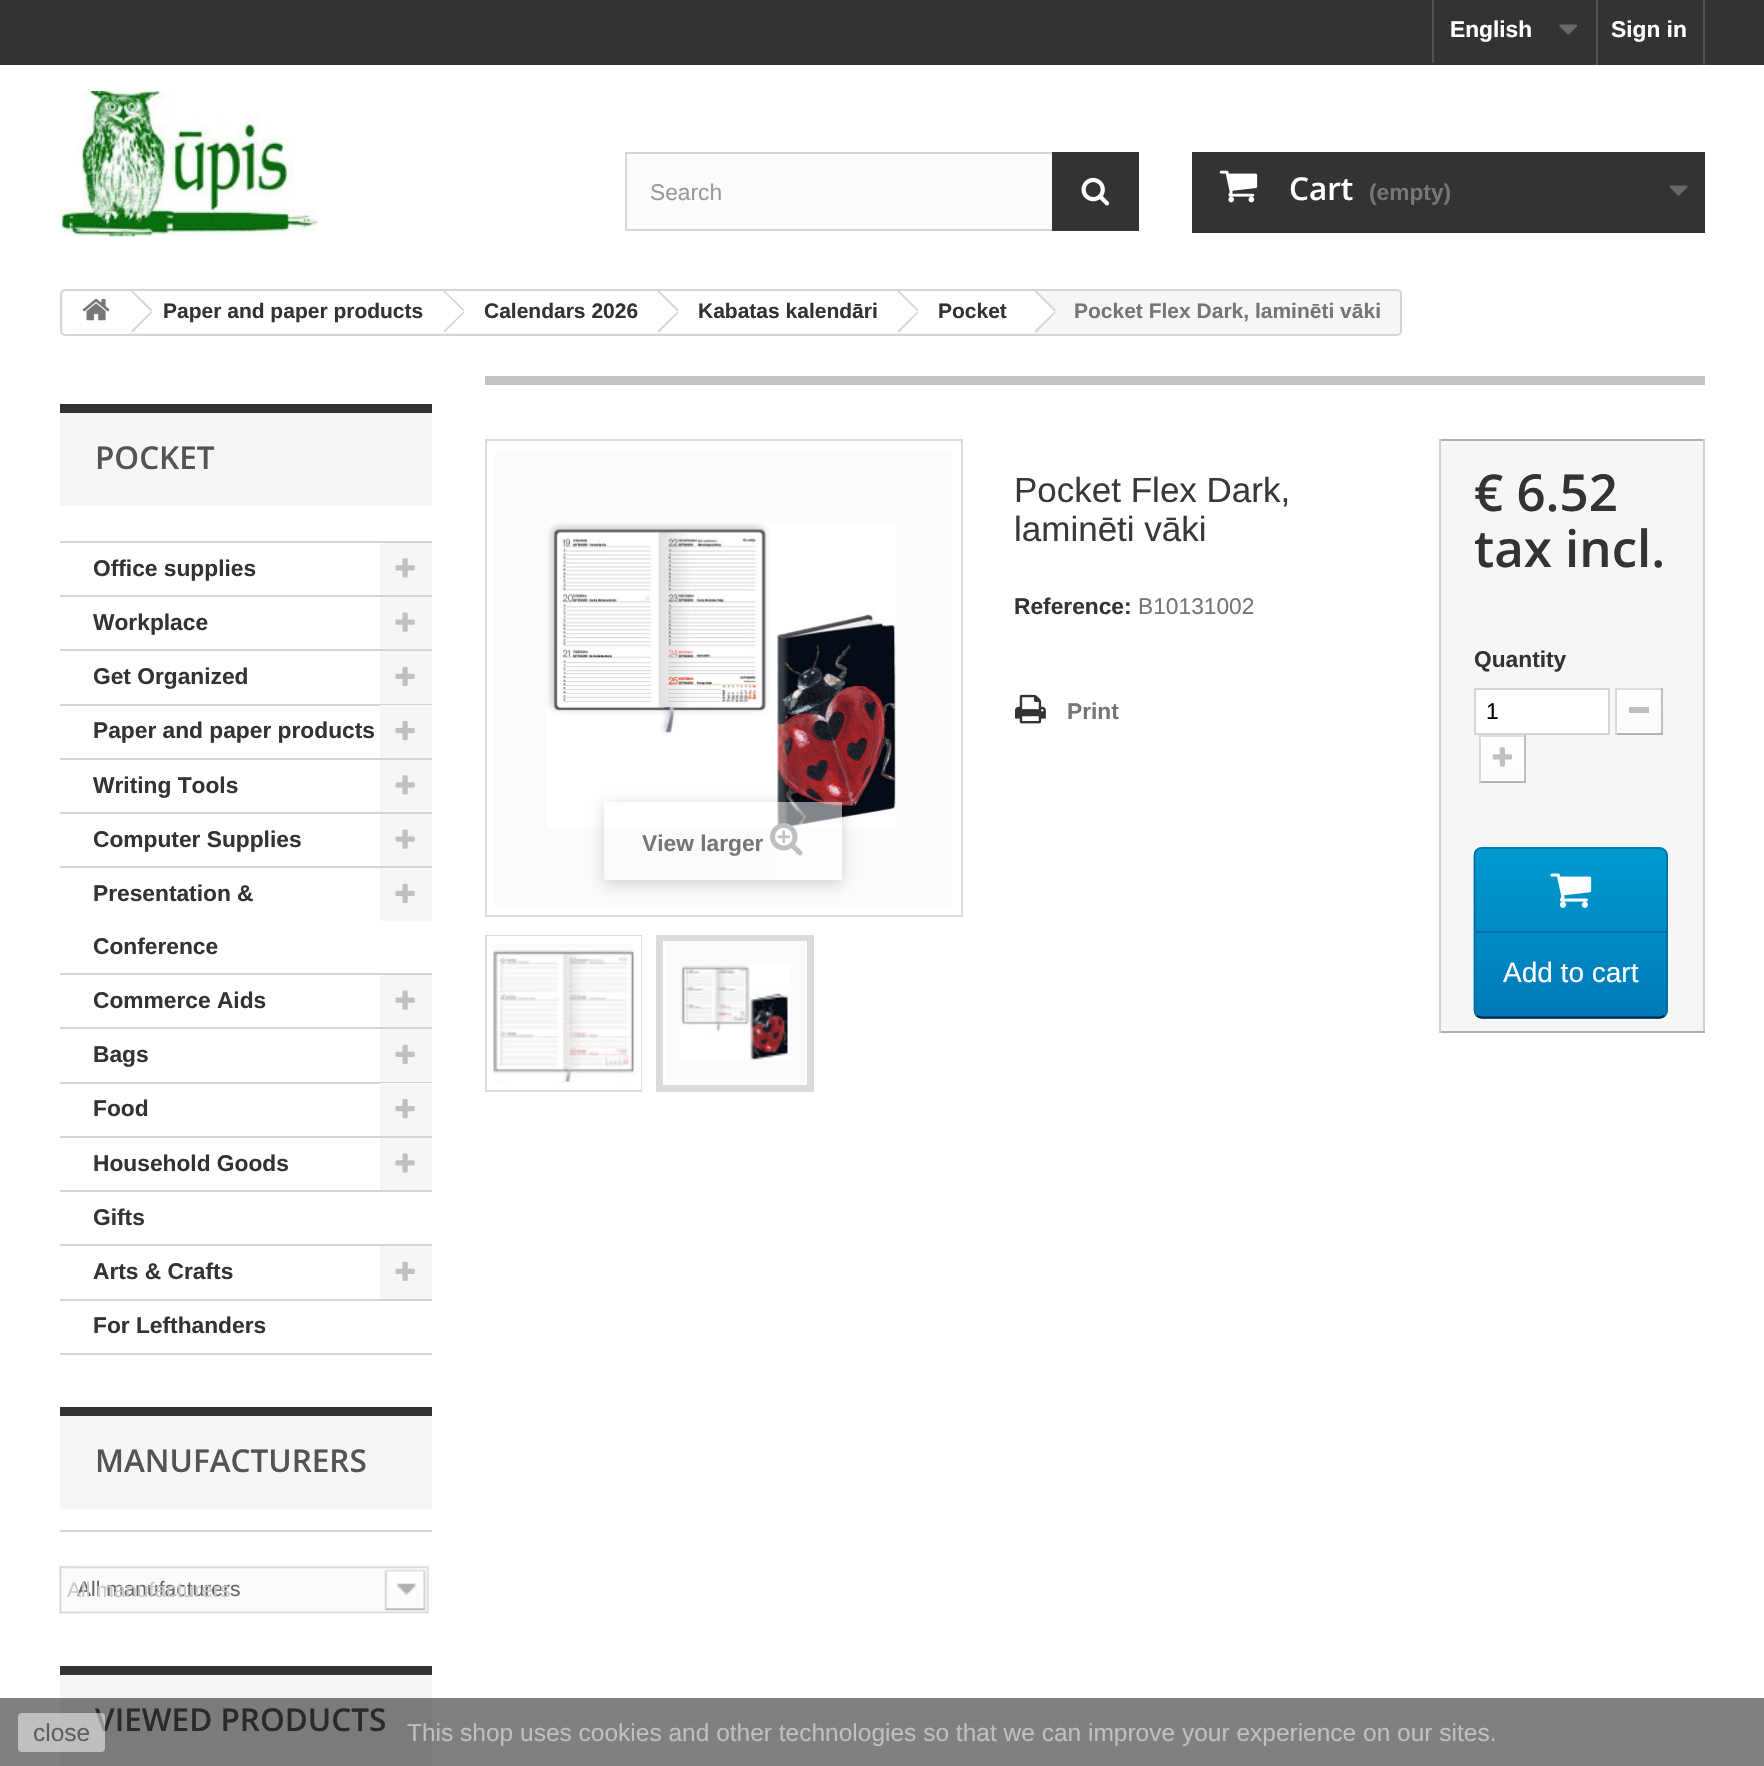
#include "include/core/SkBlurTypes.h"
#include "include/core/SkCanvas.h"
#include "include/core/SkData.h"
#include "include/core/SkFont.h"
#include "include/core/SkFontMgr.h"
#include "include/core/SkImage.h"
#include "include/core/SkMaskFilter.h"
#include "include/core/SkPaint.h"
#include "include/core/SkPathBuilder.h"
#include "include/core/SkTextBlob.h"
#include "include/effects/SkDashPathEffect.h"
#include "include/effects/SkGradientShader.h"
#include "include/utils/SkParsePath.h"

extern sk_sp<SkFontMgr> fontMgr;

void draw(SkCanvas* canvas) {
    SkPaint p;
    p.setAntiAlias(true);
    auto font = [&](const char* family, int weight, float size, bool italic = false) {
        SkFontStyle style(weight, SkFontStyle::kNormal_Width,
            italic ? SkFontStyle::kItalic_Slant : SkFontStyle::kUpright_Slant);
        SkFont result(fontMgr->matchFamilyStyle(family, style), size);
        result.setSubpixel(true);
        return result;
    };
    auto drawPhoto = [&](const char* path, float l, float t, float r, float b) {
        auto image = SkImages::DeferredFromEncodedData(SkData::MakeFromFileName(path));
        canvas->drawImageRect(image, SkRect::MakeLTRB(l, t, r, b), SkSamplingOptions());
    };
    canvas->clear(0xFFFFFFFF);
    {
        const struct { float l, t, r, b; SkColor color; } items[] = {
            {0, 1698, 1764, 1766, 0xFF808080},
            {0, 0, 1764, 65, 0xFF333333},
            {1432, 0, 1434, 63, 0xFF515151},
        };
        for (auto [l, t, r, b, color] : items) {
            p.setColor(color);
            canvas->drawRect(SkRect::MakeLTRB(l, t, r, b), p);
        }
    }
    auto font1 = font("Liberation Sans", 700, 22.75f);
    p.setColor(0xFFFFFFFF);
    canvas->drawString("English", 1450, 37, font1, p);
    drawPhoto("media/1.png", 1559, 24, 1578, 35);
    p.setColor(0xFF515151);
    canvas->drawRect(SkRect::MakeLTRB(1703, 0, 1705, 65), p);
    canvas->drawRect(SkRect::MakeLTRB(1596, 0, 1598, 65), p);
    p.setColor(0xFFFFFFFF);
    canvas->drawString("Sign in", 1611, 37, font1, p);
    drawPhoto("media/2.png", 59, 91, 318, 237);
    p.setColor(0xFFFBFBFB);
    canvas->drawRect(SkRect::MakeLTRB(627, 154, 1052, 229), p);
    p.setStyle(SkPaint::kStroke_Style);
    p.setStrokeWidth(2);
    p.setColor(0xFFD6D4D4);
    canvas->drawRect(SkRect::MakeLTRB(626, 153, 1138, 230), p);
    auto font2 = font("Liberation Sans", 400, 22.75f);
    p.setStyle(SkPaint::kFill_Style);
    p.setColor(0xFF999999);
    canvas->drawString("Search", 650, 200, font2, p);
    p.setColor(0xFF333333);
    canvas->drawRect(SkRect::MakeLTRB(1052, 152, 1139, 231), p);
    drawPhoto("media/3.png", 1081, 177, 1110, 206);
    canvas->drawRect(SkRect::MakeLTRB(1192, 152, 1705, 233), p);
    drawPhoto("media/4.png", 1219, 170, 1258, 203);
    auto font3 = font("Open Sans", 600, 31.5f);
    p.setColor(0xFFFFFFFF);
    canvas->drawString("Cart", 1289, 200, font3, p);
    p.setColor(0xFF777676);
    canvas->drawString("(empty)", 1369, 200, font1, p);
    drawPhoto("media/5.png", 1669, 185, 1688, 196);
    p.setColor(0xFFF6F6F6);
    canvas->drawRoundRect(SkRect::MakeLTRB(61, 290, 1401, 335), 4, 4, p);
    p.setStyle(SkPaint::kStroke_Style);
    p.setColor(0xFFD6D4D4);
    canvas->drawRoundRect(SkRect::MakeLTRB(61, 290, 1401, 335), 4, 4, p);
    p.setStyle(SkPaint::kFill_Style);
    p.setColor(0xFFFFFFFF);
    canvas->drawPath(SkPathBuilder().moveTo(68, 291).lineTo(130, 291).lineTo(130, 334).lineTo(68, 334).cubicTo(65, 334, 63, 332, 63, 329).lineTo(63, 296).cubicTo(63, 293, 65, 291, 68, 291).close().detach(), p);
    drawPhoto("media/6.png", 82, 299, 110, 321);
    canvas->drawRect(SkRect::MakeLTRB(130, 291, 445, 333), p);
    p.setColor(0xFFD6D4D4);
    canvas->drawPath(SkPathBuilder().moveTo(133, 291).lineTo(152.5f, 310).lineTo(151, 311.5f).lineTo(131, 291.5f).lineTo(132, 291).close().detach(), p);
    canvas->drawPath(SkPathBuilder().moveTo(151, 311.5f).lineTo(152.5f, 312.5f).lineTo(132.5f, 332.5f).lineTo(131, 331).close().detach(), p);
    auto font4 = font("Liberation Sans", 700, 21);
    p.setColor(0xFF333333);
    canvas->drawString("Paper and paper products", 163, 318, font4, p);
    p.setColor(0xFFFFFFFF);
    canvas->drawPath(SkPathBuilder().moveTo(454, 292).lineTo(453, 291).lineTo(450, 291).lineTo(432, 309).cubicTo(429, 312, 432, 314, 435, 317).lineTo(440, 322).cubicTo(442, 324, 450, 334, 453, 332).lineTo(468, 317).cubicTo(470, 315, 475, 311, 471, 309).close().detach(), p);
    canvas->drawRect(SkRect::MakeLTRB(445, 291, 660, 333), p);
    p.setColor(0xFFD6D4D4);
    canvas->drawPath(SkPathBuilder().moveTo(444.5f, 290.5f).lineTo(464.5f, 310).lineTo(463.5f, 311.5f).lineTo(443.5f, 291.5f).close().detach(), p);
    canvas->drawPath(SkPathBuilder().moveTo(463.5f, 311.5f).lineTo(464.5f, 312.5f).lineTo(444.5f, 332.5f).lineTo(443.5f, 331).close().detach(), p);
    p.setColor(0xFF333333);
    canvas->drawString("Calendars 2026", 484, 318, font4, p);
    p.setColor(0xFFFFFFFF);
    canvas->drawPath(SkPathBuilder().moveTo(668, 292).lineTo(667, 291).lineTo(664, 291).lineTo(652, 303).cubicTo(641, 314, 644, 312, 654, 322).lineTo(660, 328).cubicTo(663, 331, 665, 334, 668, 331).lineTo(680, 320).cubicTo(682, 318, 690, 313, 686, 309).close().detach(), p);
    canvas->drawRect(SkRect::MakeLTRB(660, 291, 900, 333), p);
    p.setColor(0xFFD6D4D4);
    canvas->drawPath(SkPathBuilder().moveTo(659.5f, 291).lineTo(679, 310).lineTo(677.5f, 311.5f).lineTo(657.5f, 291.5f).lineTo(658, 291).close().detach(), p);
    canvas->drawPath(SkPathBuilder().moveTo(677.5f, 311.5f).lineTo(679, 312.5f).lineTo(659, 332.5f).lineTo(657.5f, 331).close().detach(), p);
    p.setColor(0xFF333333);
    canvas->drawString("Kabatas kalendāri", 698, 318, font4, p);
    p.setColor(0xFFFFFFFF);
    canvas->drawPath(SkPathBuilder().moveTo(908, 292).lineTo(907, 291).lineTo(904, 291).lineTo(892, 303).cubicTo(881, 314, 884, 312, 894, 322).lineTo(900, 328).cubicTo(903, 331, 905, 334, 908, 331).lineTo(920, 320).cubicTo(922, 318, 930, 313, 926, 309).close().detach(), p);
    canvas->drawRect(SkRect::MakeLTRB(900, 291, 1033, 333), p);
    p.setColor(0xFFD6D4D4);
    canvas->drawPath(SkPathBuilder().moveTo(899.5f, 291).lineTo(918.5f, 310).lineTo(917.5f, 311.5f).lineTo(897.5f, 291.5f).lineTo(898, 291).close().detach(), p);
    canvas->drawPath(SkPathBuilder().moveTo(917.5f, 311.5f).lineTo(918.5f, 312.5f).lineTo(899, 332.5f).lineTo(897.5f, 331).close().detach(), p);
    p.setColor(0xFF333333);
    canvas->drawString("Pocket", 938, 318, font4, p);
    p.setColor(0xFFFFFFFF);
    canvas->drawPath(SkPathBuilder().moveTo(1037, 292).lineTo(1036, 291).lineTo(1033, 291).lineTo(1021, 303).cubicTo(1010, 314, 1013, 312, 1024, 322).lineTo(1029, 328).cubicTo(1032, 331, 1034, 334, 1037, 331).lineTo(1049, 320).cubicTo(1051, 318, 1059, 313, 1055, 309).close().detach(), p);
    p.setColor(0xFFD6D4D4);
    canvas->drawPath(SkPathBuilder().moveTo(1036.5f, 291).lineTo(1056, 310).lineTo(1054.5f, 311.5f).lineTo(1034.5f, 291.5f).lineTo(1035, 291).close().detach(), p);
    canvas->drawPath(SkPathBuilder().moveTo(1054.5f, 311.5f).lineTo(1056, 312.5f).lineTo(1036, 332.5f).lineTo(1034.5f, 331).close().detach(), p);
    p.setColor(0xFF777676);
    canvas->drawString("Pocket Flex Dark, laminēti vāki", 1074, 318, font4, p);
    p.setColor(0xFFF6F6F6);
    canvas->drawRect(SkRect::MakeLTRB(60, 413, 432, 506), p);
    p.setColor(0xFF333333);
    canvas->drawRect(SkRect::MakeLTRB(60, 404, 432, 413), p);
    p.setColor(0xFF555454);
    canvas->drawString("POCKET", 95, 469, font3, p);
    p.setColor(0xFFD6D4D4);
    canvas->drawRect(SkRect::MakeLTRB(60, 541, 432, 543), p);
    canvas->drawRect(SkRect::MakeLTRB(60, 595, 432, 597), p);
    p.setColor(0xFF333333);
    canvas->drawString("Office supplies", 93, 576, font1, p);
    p.setColor(0xFFF6F6F6);
    canvas->drawRect(SkRect::MakeLTRB(380, 543, 432, 595), p);
    drawPhoto("media/7.png", 395, 558, 415, 578);
    p.setColor(0xFFD6D4D4);
    canvas->drawRect(SkRect::MakeLTRB(60, 649, 432, 651), p);
    p.setColor(0xFF333333);
    canvas->drawString("Workplace", 93, 630, font1, p);
    p.setColor(0xFFF6F6F6);
    canvas->drawRect(SkRect::MakeLTRB(380, 597, 432, 649), p);
    drawPhoto("media/8.png", 395, 612, 415, 632);
    p.setColor(0xFFD6D4D4);
    canvas->drawRect(SkRect::MakeLTRB(60, 704, 432, 706), p);
    p.setColor(0xFF333333);
    canvas->drawString("Get Organized", 93, 684, font1, p);
    p.setColor(0xFFF6F6F6);
    canvas->drawRect(SkRect::MakeLTRB(380, 651, 432, 704), p);
    drawPhoto("media/9.png", 395, 666, 415, 686);
    p.setColor(0xFFD6D4D4);
    canvas->drawRect(SkRect::MakeLTRB(60, 758, 432, 760), p);
    p.setColor(0xFF333333);
    canvas->drawString("Paper and paper products", 93, 738, font1, p);
    p.setColor(0xFFF6F6F6);
    canvas->drawRect(SkRect::MakeLTRB(380, 705, 432, 758), p);
    drawPhoto("media/10.png", 395, 721, 415, 741);
    p.setColor(0xFFD6D4D4);
    canvas->drawRect(SkRect::MakeLTRB(60, 812, 432, 814), p);
    p.setColor(0xFF333333);
    canvas->drawString("Writing Tools", 93, 793, font1, p);
    p.setColor(0xFFF6F6F6);
    canvas->drawRect(SkRect::MakeLTRB(380, 760, 432, 812), p);
    drawPhoto("media/7.png", 395, 775, 415, 795);
    p.setColor(0xFFD6D4D4);
    canvas->drawRect(SkRect::MakeLTRB(60, 866, 432, 868), p);
    p.setColor(0xFF333333);
    canvas->drawString("Computer Supplies", 93, 847, font1, p);
    p.setColor(0xFFF6F6F6);
    canvas->drawRect(SkRect::MakeLTRB(380, 814, 432, 866), p);
    drawPhoto("media/8.png", 395, 829, 415, 849);
    p.setColor(0xFFD6D4D4);
    canvas->drawRect(SkRect::MakeLTRB(60, 973, 432, 975), p);
    p.setColor(0xFF333333);
    canvas->drawString("Presentation &", 93, 901, font1, p);
    canvas->drawString("Conference", 93, 954, font1, p);
    p.setColor(0xFFF6F6F6);
    canvas->drawRect(SkRect::MakeLTRB(380, 868, 432, 921), p);
    drawPhoto("media/9.png", 395, 883, 415, 903);
    p.setColor(0xFFD6D4D4);
    canvas->drawRect(SkRect::MakeLTRB(60, 1027, 432, 1029), p);
    p.setColor(0xFF333333);
    canvas->drawString("Commerce Aids", 93, 1008, font1, p);
    p.setColor(0xFFF6F6F6);
    canvas->drawRect(SkRect::MakeLTRB(380, 975, 432, 1027), p);
    drawPhoto("media/8.png", 395, 990, 415, 1010);
    p.setColor(0xFFD6D4D4);
    canvas->drawRect(SkRect::MakeLTRB(60, 1082, 432, 1084), p);
    p.setColor(0xFF333333);
    canvas->drawString("Bags", 93, 1062, font1, p);
    p.setColor(0xFFF6F6F6);
    canvas->drawRect(SkRect::MakeLTRB(380, 1029, 432, 1082), p);
    drawPhoto("media/9.png", 395, 1044, 415, 1064);
    p.setColor(0xFFD6D4D4);
    canvas->drawRect(SkRect::MakeLTRB(60, 1136, 432, 1138), p);
    p.setColor(0xFF333333);
    canvas->drawString("Food", 93, 1116, font1, p);
    p.setColor(0xFFF6F6F6);
    canvas->drawRect(SkRect::MakeLTRB(380, 1083, 432, 1136), p);
    drawPhoto("media/10.png", 395, 1099, 415, 1119);
    p.setColor(0xFFD6D4D4);
    canvas->drawRect(SkRect::MakeLTRB(60, 1190, 432, 1192), p);
    p.setColor(0xFF333333);
    canvas->drawString("Household Goods", 93, 1171, font1, p);
    p.setColor(0xFFF6F6F6);
    canvas->drawRect(SkRect::MakeLTRB(380, 1138, 432, 1190), p);
    drawPhoto("media/7.png", 395, 1153, 415, 1173);
    p.setColor(0xFFD6D4D4);
    canvas->drawRect(SkRect::MakeLTRB(60, 1244, 432, 1246), p);
    p.setColor(0xFF333333);
    canvas->drawString("Gifts", 93, 1225, font1, p);
    p.setColor(0xFFD6D4D4);
    canvas->drawRect(SkRect::MakeLTRB(60, 1299, 432, 1301), p);
    p.setColor(0xFF333333);
    canvas->drawString("Arts & Crafts", 93, 1279, font1, p);
    p.setColor(0xFFF6F6F6);
    canvas->drawRect(SkRect::MakeLTRB(380, 1246, 432, 1299), p);
    drawPhoto("media/9.png", 395, 1261, 415, 1281);
    p.setColor(0xFFD6D4D4);
    canvas->drawRect(SkRect::MakeLTRB(60, 1353, 432, 1355), p);
    p.setColor(0xFF333333);
    canvas->drawString("For Lefthanders", 93, 1333, font1, p);
    p.setColor(0xFFF6F6F6);
    canvas->drawRect(SkRect::MakeLTRB(60, 1416, 432, 1509), p);
    p.setColor(0xFF333333);
    canvas->drawRect(SkRect::MakeLTRB(60, 1407, 432, 1416), p);
    p.setColor(0xFF555454);
    canvas->drawString("MANUFACTURERS", 95, 1472, font3, p);
    p.setColor(0xFFD6D4D4);
    canvas->drawRect(SkRect::MakeLTRB(60, 1530, 432, 1532), p);
    drawPhoto("media/11.png", 59, 1566, 78, 1614);
    drawPhoto("media/12.png", 77, 1566, 429, 1614);
    auto font5 = font("Liberation Sans", 400, 21);
    p.setColor(0xFF666666);
    canvas->drawString("All manufacturers", 77, 1596, font5, p);
    p.setColor(0xFFCACACA);
    canvas->drawString("All manufacturers", 67, 1597, font5, p);
    {
        const struct { float l, t, r, b; SkColor color; } items[] = {
            {60, 1675, 432, 1698, 0xFFF6F6F6},
            {60, 1698, 432, 1766, 0xFF7B7B7B},
            {60, 1666, 432, 1675, 0xFF333333},
        };
        for (auto [l, t, r, b, color] : items) {
            p.setColor(color);
            canvas->drawRect(SkRect::MakeLTRB(l, t, r, b), p);
        }
    }
    p.setColor(0xFF2B2A2A);
    canvas->drawString("VIEWED PRODUCTS", 95, 1731, font3, p);
    p.setColor(0xFFC4C4C4);
    canvas->drawRect(SkRect::MakeLTRB(485, 376, 1705, 385), p);
    auto font6 = font("Liberation Sans", 400, 35);
    p.setColor(0xFF3A3939);
    canvas->drawString("Pocket Flex Dark,", 1014, 502, font6, p);
    canvas->drawString("laminēti vāki", 1014, 541, font6, p);
    p.setColor(0xFF333333);
    canvas->drawString("Reference:", 1014, 614, font1, p);
    p.setColor(0xFF777676);
    canvas->drawString("B10131002", 1138, 614, font2, p);
    drawPhoto("media/13.png", 1015, 694, 1046, 724);
    canvas->drawString("Print", 1067, 719, font1, p);
    {
        const struct { float l, t, r, b; SkColor color; } items[] = {
            {1441, 441, 1703, 1031, 0xFFF6F6F6},
            {1439, 439, 1705, 441, 0xFFB0AFAF},
            {1703, 439, 1705, 1033, 0xFFD2D0D0},
            {1439, 1031, 1705, 1033, 0xFFB0AFAF},
            {1439, 439, 1441, 1033, 0xFFD2D0D0},
        };
        for (auto [l, t, r, b, color] : items) {
            p.setColor(color);
            canvas->drawRect(SkRect::MakeLTRB(l, t, r, b), p);
        }
    }
    auto font7 = font("Open Sans", 600, 51);
    p.setColor(0xFF333333);
    canvas->drawString("€ 6.52", 1474, 511, font7, p);
    canvas->drawString("tax incl.", 1474, 567, font7, p);
    canvas->drawString("Quantity", 1474, 667, font1, p);
    p.setColor(0xFFFFFFFF);
    canvas->drawRect(SkRect::MakeLTRB(1475, 689, 1609, 734), p);
    p.setStyle(SkPaint::kStroke_Style);
    p.setColor(0xFFD6D4D4);
    canvas->drawRect(SkRect::MakeLTRB(1475, 689, 1609, 734), p);
    p.setStyle(SkPaint::kFill_Style);
    p.setColor(0xFF000000);
    canvas->drawString("1", 1486, 719, font2, p);
    {
        const struct { float l, t, r, b; SkColor color; } items[] = {
            {1615, 688, 1663, 690, 0xFFDEDCDC},
            {1661, 688, 1663, 735, 0xFFC1BFBF},
            {1615, 733, 1663, 735, 0xFFB5B4B4},
            {1615, 688, 1617, 735, 0xFFDAD8D8},
        };
        for (auto [l, t, r, b, color] : items) {
            p.setColor(color);
            canvas->drawRect(SkRect::MakeLTRB(l, t, r, b), p);
        }
    }
    {
        const SkColor colors[] = {0xFFFFFFFF, 0xFFFBFBFB};
        const float stops[] = {0, 1};
        const SkPoint ends[] = {{1639, 691}, {1639, 732}};
        p.setShader(SkGradientShader::MakeLinear(ends, colors, stops, 2, SkTileMode::kClamp));
        p.setAlpha(255);
    }
    canvas->drawRect(SkRect::MakeLTRB(1619, 692, 1659, 731), p);
    p.setStyle(SkPaint::kStroke_Style);
    p.setShader(nullptr);
    p.setColor(0xFFFFFFFF);
    canvas->drawRect(SkRect::MakeLTRB(1618, 691, 1660, 732), p);
    p.setStyle(SkPaint::kFill_Style);
    {
        const struct { float l, t, r, b; SkColor color; } items[] = {
            {1629, 707, 1649, 713, 0xFFC0C0C0},
            {1479, 735, 1526, 737, 0xFFDEDCDC},
            {1524, 735, 1526, 782, 0xFFC1BFBF},
            {1479, 781, 1526, 783, 0xFFB5B4B4},
            {1479, 735, 1481, 782, 0xFFDAD8D8},
        };
        for (auto [l, t, r, b, color] : items) {
            p.setColor(color);
            canvas->drawRect(SkRect::MakeLTRB(l, t, r, b), p);
        }
    }
    {
        const SkColor colors[] = {0xFFFFFFFF, 0xFFFBFBFB};
        const float stops[] = {0, 1};
        const SkPoint ends[] = {{1502, 739}, {1502, 779}};
        p.setShader(SkGradientShader::MakeLinear(ends, colors, stops, 2, SkTileMode::kClamp));
        p.setAlpha(255);
    }
    canvas->drawRect(SkRect::MakeLTRB(1483, 739, 1522, 779), p);
    p.setStyle(SkPaint::kStroke_Style);
    p.setShader(nullptr);
    p.setColor(0xFFFFFFFF);
    canvas->drawRect(SkRect::MakeLTRB(1482, 738, 1523, 780), p);
    drawPhoto("media/14.png", 1492, 747, 1512, 767);
    canvas->save();
    canvas->clipPath(SkPathBuilder().moveTo(1483, 847).lineTo(1659, 847).cubicTo(1664, 847, 1668, 851, 1668, 856).lineTo(1668, 1010).cubicTo(1668, 1015, 1664, 1019, 1659, 1019).lineTo(1483, 1019).cubicTo(1478, 1019, 1474, 1015, 1474, 1010).lineTo(1474, 856).cubicTo(1474, 851, 1478, 847, 1483, 847).close().detach(), true);
    p.setStyle(SkPaint::kFill_Style);
    {
        const SkColor colors[] = {0xFF009AD0, 0xFF007AB7};
        const float stops[] = {0, 1};
        const SkPoint ends[] = {{1571, 849}, {1571, 1017}};
        p.setShader(SkGradientShader::MakeLinear(ends, colors, stops, 2, SkTileMode::kClamp));
        p.setAlpha(255);
    }
    canvas->drawRect(SkRect::MakeLTRB(1474, 849, 1668, 1017), p);
    {
        const SkColor colors[] = {0xFF009AD0, 0xFF007AB7};
        const float stops[] = {0, 1};
        const SkPoint ends[] = {{1571, 1017}, {1571, 1185}};
        p.setShader(SkGradientShader::MakeLinear(ends, colors, stops, 2, SkTileMode::kClamp));
        p.setAlpha(255);
    }
    canvas->drawRect(SkRect::MakeLTRB(1474, 1017, 1668, 1019), p);
    canvas->restore();
    p.setStyle(SkPaint::kStroke_Style);
    p.setStrokeWidth(1.8f);
    p.setShader(nullptr);
    p.setColor(0xFF0079B6);
    canvas->drawPath(SkPathBuilder().moveTo(1476.5f, 850).cubicTo(1478, 848.5f, 1480, 848, 1482, 848).lineTo(1659, 848).cubicTo(1661, 848, 1663, 848.5f, 1664.5f, 850).detach(), p);
    p.setColor(0xFF006FA8);
    canvas->drawPath(SkPathBuilder().moveTo(1664.5f, 850).cubicTo(1666, 851.5f, 1667, 853.5f, 1667, 856).lineTo(1667, 1010).cubicTo(1667, 1012, 1666, 1014, 1664.5f, 1015.5f).detach(), p);
    p.setColor(0xFF012740);
    canvas->drawPath(SkPathBuilder().moveTo(1664.5f, 1015.5f).cubicTo(1663, 1017, 1661, 1017.5f, 1659, 1017.5f).lineTo(1482, 1017.5f).cubicTo(1480, 1017.5f, 1478, 1017, 1476.5f, 1015.5f).detach(), p);
    p.setColor(0xFF006FA8);
    canvas->drawPath(SkPathBuilder().moveTo(1476.5f, 1015.5f).cubicTo(1475, 1014, 1474.5f, 1012, 1474.5f, 1010).lineTo(1474.5f, 856).cubicTo(1474.5f, 853.5f, 1475, 851.5f, 1476.5f, 850).detach(), p);
    drawPhoto("media/15.png", 1550, 873, 1592, 908);
    p.setStyle(SkPaint::kFill_Style);
    canvas->drawRect(SkRect::MakeLTRB(1475, 931, 1666, 933), p);
    auto font8 = font("Liberation Sans", 400, 28);
    p.setColor(0xFFFFFFFF);
    canvas->drawString("Add to cart", 1503, 982, font8, p);
    p.setStyle(SkPaint::kStroke_Style);
    p.setStrokeWidth(2);
    p.setColor(0xFFDBDBDB);
    canvas->drawRect(SkRect::MakeLTRB(486, 440, 962, 916), p);
    p.setStyle(SkPaint::kFill_Style);
    p.setColor(0xFFFBFBFB);
    canvas->drawRect(SkRect::MakeLTRB(495, 450, 952, 907), p);
    drawPhoto("media/16.png", 547, 523, 896, 828);
    canvas->save();
    canvas->clipPath(SkPathBuilder(SkPathFillType::kEvenOdd).moveTo(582, 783).lineTo(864, 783).lineTo(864, 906).lineTo(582, 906).close().moveTo(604, 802).lineTo(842, 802).lineTo(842, 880).lineTo(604, 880).close().detach(), true);
    p.setColor(0x29000000);
    p.setMaskFilter(SkMaskFilter::MakeBlur(kNormal_SkBlurStyle, 7));
    canvas->drawRect(SkRect::MakeLTRB(604, 805, 842, 884), p);
    p.setMaskFilter(nullptr);
    canvas->restore();
    p.setColor(0x80FFFFFF);
    canvas->drawRect(SkRect::MakeLTRB(777, 802, 842, 880), p);
    p.setColor(0xFF777676);
    canvas->drawString("View larger", 642, 851, font1, p);
    drawPhoto("media/17.png", 770, 823, 803, 856);
    p.setStyle(SkPaint::kStroke_Style);
    p.setColor(0xFFDBDBDB);
    canvas->drawRect(SkRect::MakeLTRB(486, 936, 641, 1091), p);
    p.setStyle(SkPaint::kFill_Style);
    p.setColor(0xFFFBFBFB);
    canvas->drawRect(SkRect::MakeLTRB(489.5f, 938.5f, 638.5f, 1087.5f), p);
    p.setStyle(SkPaint::kStroke_Style);
    p.setStrokeWidth(5);
    p.setColor(0xFFFFFFFF);
    canvas->drawRect(SkRect::MakeLTRB(489.5f, 938.5f, 638.5f, 1087.5f), p);
    p.setStrokeWidth(2);
    canvas->drawRect(SkRect::MakeLTRB(493, 943, 634, 1084), p);
    drawPhoto("media/18.png", 493, 949, 634, 1082);
    p.setColor(0xFFDBDBDB);
    canvas->drawRect(SkRect::MakeLTRB(657, 936, 813, 1091), p);
    p.setStyle(SkPaint::kFill_Style);
    p.setColor(0xFFFBFBFB);
    canvas->drawRect(SkRect::MakeLTRB(663, 941, 807, 1083), p);
    p.setStyle(SkPaint::kStroke_Style);
    p.setStrokeWidth(5);
    p.setColor(0xFFDBDBDB);
    canvas->drawRect(SkRect::MakeLTRB(660.5f, 938.5f, 809.5f, 1087.5f), p);
    p.setStrokeWidth(2);
    p.setColor(0xFFFFFFFF);
    canvas->drawRect(SkRect::MakeLTRB(664, 943, 806, 1084), p);
    drawPhoto("media/19.png", 680, 965, 791, 1062);
    p.setStyle(SkPaint::kFill_Style);
    p.setColor(0x80FFFFFF);
    canvas->drawRoundRect(SkRect::MakeLTRB(18, 1713, 105, 1752), 4, 4, p);
    auto font9 = font("Liberation Sans", 400, 24.5f);
    p.setColor(0xFF5F5F5F);
    canvas->drawString("close", 33, 1741, font9, p);
    p.setColor(0xFFBFBFBF);
    canvas->drawString("This shop uses cookies and other technologies so that we can improve your experience on our sites.", 407, 1741, font9, p);
}
